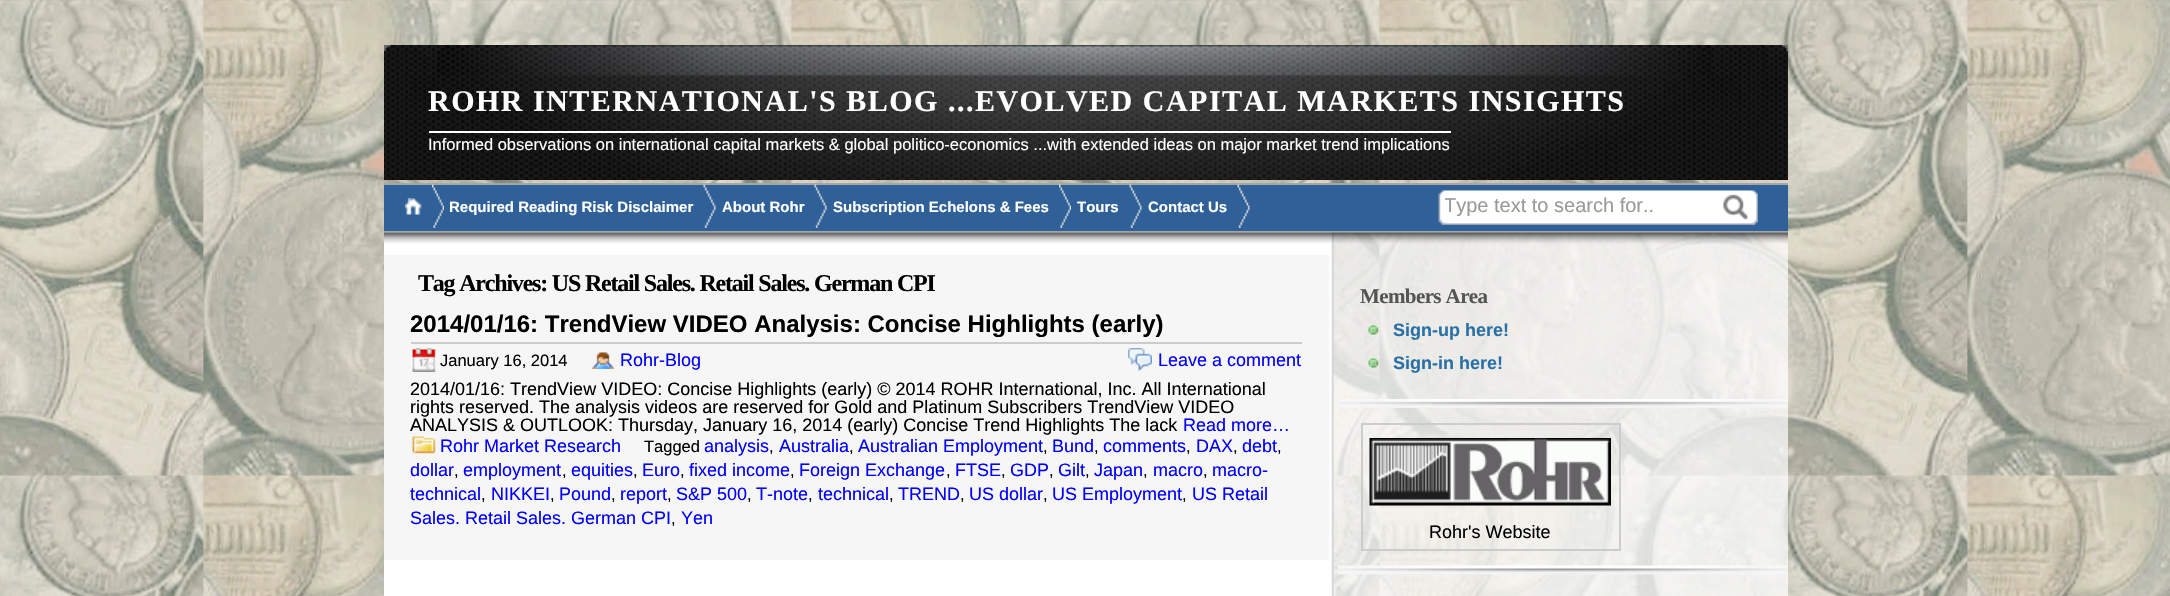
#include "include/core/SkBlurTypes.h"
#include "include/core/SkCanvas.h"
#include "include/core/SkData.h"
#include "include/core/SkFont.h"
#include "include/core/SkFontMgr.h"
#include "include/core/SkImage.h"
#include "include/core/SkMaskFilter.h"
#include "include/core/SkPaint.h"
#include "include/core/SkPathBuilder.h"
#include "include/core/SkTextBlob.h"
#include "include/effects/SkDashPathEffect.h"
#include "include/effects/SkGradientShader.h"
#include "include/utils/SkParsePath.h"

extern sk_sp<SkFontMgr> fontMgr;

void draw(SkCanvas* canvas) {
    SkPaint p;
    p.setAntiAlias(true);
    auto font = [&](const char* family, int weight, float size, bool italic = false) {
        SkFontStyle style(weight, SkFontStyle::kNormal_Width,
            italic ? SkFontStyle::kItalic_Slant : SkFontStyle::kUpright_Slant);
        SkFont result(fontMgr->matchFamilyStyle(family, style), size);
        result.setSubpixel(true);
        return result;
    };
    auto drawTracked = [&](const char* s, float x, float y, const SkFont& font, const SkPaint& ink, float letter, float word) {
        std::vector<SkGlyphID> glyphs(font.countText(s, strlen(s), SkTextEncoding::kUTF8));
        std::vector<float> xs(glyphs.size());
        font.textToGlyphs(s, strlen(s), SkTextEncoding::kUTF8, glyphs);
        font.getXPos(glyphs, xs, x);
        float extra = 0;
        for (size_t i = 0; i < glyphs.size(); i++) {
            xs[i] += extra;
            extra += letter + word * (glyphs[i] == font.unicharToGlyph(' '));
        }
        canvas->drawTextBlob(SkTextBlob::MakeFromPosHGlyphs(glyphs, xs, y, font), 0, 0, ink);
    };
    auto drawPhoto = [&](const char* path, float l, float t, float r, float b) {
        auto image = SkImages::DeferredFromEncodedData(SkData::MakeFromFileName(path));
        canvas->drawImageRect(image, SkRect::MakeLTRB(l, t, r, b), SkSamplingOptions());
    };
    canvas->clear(0xFFFFFFFF);
    drawPhoto("media/1.png", 0, 0, 2170, 596);
    drawPhoto("media/2.png", 384, 45, 1788, 180);
    auto font1 = font("Liberation Serif", 700, 30);
    p.setColor(0xFFFFFFFF);
    drawTracked("ROHR INTERNATIONAL'S BLOG ...EVOLVED CAPITAL MARKETS INSIGHTS", 428, 111, font1, p, 1.5f, 0);
    canvas->drawRect(SkRect::MakeLTRB(429, 131, 1451, 133), p);
    auto font2 = font("Liberation Sans", 400, 16.5f);
    canvas->drawString("Informed observations on international capital markets & global politico-economics ...with extended ideas on major market trend implications", 428, 150, font2, p);
    {
        const struct { float l, t, r, b; SkColor color; } items[] = {
            {384, 185, 1788, 231, 0xFF2F6098},
            {384, 183, 1788, 185, 0xFFA6A6A6},
            {384, 231, 1788, 233, 0xFFA6A6A6},
        };
        for (auto [l, t, r, b, color] : items) {
            p.setColor(color);
            canvas->drawRect(SkRect::MakeLTRB(l, t, r, b), p);
        }
    }
    drawPhoto("media/3.png", 432, 184, 444, 228);
    drawPhoto("media/4.png", 405, 198, 422, 215);
    drawPhoto("media/5.png", 703, 184, 716, 228);
    auto font3 = font("Liberation Sans", 700, 15);
    p.setColor(0xFFFFFFFF);
    canvas->drawString("Required Reading Risk Disclaimer", 449, 212, font3, p);
    drawPhoto("media/6.png", 814, 184, 827, 228);
    canvas->drawString("About Rohr", 722, 212, font3, p);
    drawPhoto("media/3.png", 1059, 184, 1071, 228);
    canvas->drawString("Subscription Echelons & Fees", 833, 212, font3, p);
    drawPhoto("media/5.png", 1129, 184, 1142, 228);
    canvas->drawString("Tours", 1077, 212, font3, p);
    drawPhoto("media/6.png", 1237, 184, 1250, 228);
    canvas->drawString("Contact Us", 1148, 212, font3, p);
    drawPhoto("media/7.png", 1438, 190, 1758, 225);
    canvas->save();
    canvas->clipRect(SkRect::MakeLTRB(1445, 194, 1722, 216));
    auto font4 = font("Liberation Sans", 400, 20);
    p.setColor(0xFF999999);
    canvas->drawString("Type text to search for..", 1444, 212, font4, p);
    canvas->restore();
    drawPhoto("media/8.png", 384, 232, 1788, 596);
    drawPhoto("media/9.png", 384, 232, 1788, 244);
    p.setColor(0xFFF6F6F6);
    canvas->drawRect(SkRect::MakeLTRB(384, 255, 1329, 560), p);
    auto font5 = font("Liberation Serif", 700, 24);
    p.setColor(0xFF000000);
    drawTracked("Tag Archives: US Retail Sales. Retail Sales. German CPI", 418, 291, font5, p, -1.2f, 0);
    p.setColor(0xFFCCCCCC);
    canvas->drawRect(SkRect::MakeLTRB(411, 342, 1302, 344), p);
    auto font6 = font("Liberation Sans", 700, 24);
    p.setColor(0xFF000000);
    canvas->drawString("2014/01/16: TrendView VIDEO Analysis: Concise Highlights (early)", 410, 332, font6, p);
    drawPhoto("media/10.png", 411, 348, 436, 372);
    canvas->drawString("January 16, 2014", 440, 366, font2, p);
    drawPhoto("media/11.png", 592, 352, 614, 369);
    auto font7 = font("Liberation Sans", 400, 18);
    p.setColor(0xFF0000FF);
    canvas->drawString("Rohr-Blog", 620, 366, font7, p);
    drawPhoto("media/12.png", 1128, 348, 1152, 371);
    canvas->drawString("Leave a comment", 1158, 366, font7, p);
    p.setColor(0xFF000000);
    {
        const struct { const char* s; float x, y; } items[] = {
            {"2014/01/16: TrendView VIDEO: Concise Highlights (early) © 2014 ROHR International, Inc. All International", 410, 395},
            {"rights reserved. The analysis videos are reserved for Gold and Platinum Subscribers TrendView VIDEO", 410, 413},
            {"ANALYSIS & OUTLOOK: Thursday, January 16, 2014 (early) Concise Trend Highlights The lack", 410, 431},
        };
        for (auto [s, x, y] : items) {
            canvas->drawString(s, x, y, font7, p);
        }
    }
    p.setColor(0xFF0000FF);
    canvas->drawString("Read more…", 1183, 431, font7, p);
    drawPhoto("media/13.png", 412, 436, 436, 454);
    canvas->drawString("Rohr Market Research", 440, 452, font7, p);
    p.setColor(0xFF000000);
    canvas->drawString("Tagged", 644, 452, font2, p);
    p.setColor(0xFF0000FF);
    canvas->drawString("analysis", 704, 452, font7, p);
    p.setColor(0xFF000000);
    canvas->drawString(",", 769, 452, font2, p);
    p.setColor(0xFF0000FF);
    canvas->drawString("Australia", 779, 452, font7, p);
    p.setColor(0xFF000000);
    canvas->drawString(",", 849, 452, font2, p);
    p.setColor(0xFF0000FF);
    canvas->drawString("Australian Employment", 858, 452, font7, p);
    p.setColor(0xFF000000);
    canvas->drawString(",", 1043, 452, font2, p);
    p.setColor(0xFF0000FF);
    canvas->drawString("Bund", 1052, 452, font7, p);
    p.setColor(0xFF000000);
    canvas->drawString(",", 1094, 452, font2, p);
    p.setColor(0xFF0000FF);
    canvas->drawString("comments", 1103, 452, font7, p);
    p.setColor(0xFF000000);
    canvas->drawString(",", 1186, 452, font2, p);
    p.setColor(0xFF0000FF);
    canvas->drawString("DAX", 1196, 452, font7, p);
    p.setColor(0xFF000000);
    canvas->drawString(",", 1233, 452, font2, p);
    p.setColor(0xFF0000FF);
    canvas->drawString("debt", 1242, 452, font7, p);
    p.setColor(0xFF000000);
    canvas->drawString(",", 1277, 452, font2, p);
    p.setColor(0xFF0000FF);
    canvas->drawString("dollar", 410, 476, font7, p);
    p.setColor(0xFF000000);
    canvas->drawString(",", 454, 476, font2, p);
    p.setColor(0xFF0000FF);
    canvas->drawString("employment", 463, 476, font7, p);
    p.setColor(0xFF000000);
    canvas->drawString(",", 562, 476, font2, p);
    p.setColor(0xFF0000FF);
    canvas->drawString("equities", 571, 476, font7, p);
    p.setColor(0xFF000000);
    canvas->drawString(",", 633, 476, font2, p);
    p.setColor(0xFF0000FF);
    canvas->drawString("Euro", 642, 476, font7, p);
    p.setColor(0xFF000000);
    canvas->drawString(",", 680, 476, font2, p);
    p.setColor(0xFF0000FF);
    canvas->drawString("fixed income", 689, 476, font7, p);
    p.setColor(0xFF000000);
    canvas->drawString(",", 790, 476, font2, p);
    p.setColor(0xFF0000FF);
    canvas->drawString("Foreign Exchange", 799, 476, font7, p);
    p.setColor(0xFF000000);
    canvas->drawString(",", 946, 476, font2, p);
    p.setColor(0xFF0000FF);
    canvas->drawString("FTSE", 955, 476, font7, p);
    p.setColor(0xFF000000);
    canvas->drawString(",", 1001, 476, font2, p);
    p.setColor(0xFF0000FF);
    canvas->drawString("GDP", 1010, 476, font7, p);
    p.setColor(0xFF000000);
    canvas->drawString(",", 1049, 476, font2, p);
    p.setColor(0xFF0000FF);
    canvas->drawString("Gilt", 1058, 476, font7, p);
    p.setColor(0xFF000000);
    canvas->drawString(",", 1085, 476, font2, p);
    p.setColor(0xFF0000FF);
    canvas->drawString("Japan", 1094, 476, font7, p);
    p.setColor(0xFF000000);
    canvas->drawString(",", 1143, 476, font2, p);
    p.setColor(0xFF0000FF);
    canvas->drawString("macro", 1153, 476, font7, p);
    p.setColor(0xFF000000);
    canvas->drawString(",", 1203, 476, font2, p);
    p.setColor(0xFF0000FF);
    canvas->drawString("macro-", 1212, 476, font7, p);
    canvas->drawString("technical", 410, 500, font7, p);
    p.setColor(0xFF000000);
    canvas->drawString(",", 481, 500, font2, p);
    p.setColor(0xFF0000FF);
    canvas->drawString("NIKKEI", 491, 500, font7, p);
    p.setColor(0xFF000000);
    canvas->drawString(",", 550, 500, font2, p);
    p.setColor(0xFF0000FF);
    canvas->drawString("Pound", 559, 500, font7, p);
    p.setColor(0xFF000000);
    canvas->drawString(",", 611, 500, font2, p);
    p.setColor(0xFF0000FF);
    canvas->drawString("report", 620, 500, font7, p);
    p.setColor(0xFF000000);
    canvas->drawString(",", 667, 500, font2, p);
    p.setColor(0xFF0000FF);
    canvas->drawString("S&P 500", 676, 500, font7, p);
    p.setColor(0xFF000000);
    canvas->drawString(",", 747, 500, font2, p);
    p.setColor(0xFF0000FF);
    canvas->drawString("T-note", 756, 500, font7, p);
    p.setColor(0xFF000000);
    canvas->drawString(",", 808, 500, font2, p);
    p.setColor(0xFF0000FF);
    canvas->drawString("technical", 818, 500, font7, p);
    p.setColor(0xFF000000);
    canvas->drawString(",", 889, 500, font2, p);
    p.setColor(0xFF0000FF);
    canvas->drawString("TREND", 898, 500, font7, p);
    p.setColor(0xFF000000);
    canvas->drawString(",", 960, 500, font2, p);
    p.setColor(0xFF0000FF);
    canvas->drawString("US dollar", 969, 500, font7, p);
    p.setColor(0xFF000000);
    canvas->drawString(",", 1043, 500, font2, p);
    p.setColor(0xFF0000FF);
    canvas->drawString("US Employment", 1052, 500, font7, p);
    p.setColor(0xFF000000);
    canvas->drawString(",", 1182, 500, font2, p);
    p.setColor(0xFF0000FF);
    canvas->drawString("US Retail", 1192, 500, font7, p);
    canvas->drawString("Sales. Retail Sales. German CPI", 410, 524, font7, p);
    p.setColor(0xFF000000);
    canvas->drawString(",", 671, 524, font2, p);
    p.setColor(0xFF0000FF);
    canvas->drawString("Yen", 681, 524, font7, p);
    drawPhoto("media/14.png", 1338, 399, 1788, 408);
    auto font8 = font("Liberation Serif", 700, 21);
    p.setColor(0xFF555555);
    drawTracked("Members Area", 1360, 303, font8, p, -0.6f, 0);
    drawPhoto("media/15.png", 1368, 325, 1379, 335);
    auto font9 = font("Liberation Sans", 700, 18);
    p.setColor(0xFF2970A6);
    canvas->drawString("Sign-up here!", 1393, 336, font9, p);
    drawPhoto("media/16.png", 1368, 358, 1379, 368);
    canvas->drawString("Sign-in here!", 1393, 369, font9, p);
    drawPhoto("media/17.png", 1338, 565, 1788, 575);
    {
        const struct { float l, t, r, b; SkColor color; } items[] = {
            {1361, 423, 1620, 425, 0xFFCCCCCC},
            {1619, 423, 1621, 551, 0xFFCCCCCC},
            {1361, 423, 1363, 440, 0xFFCCCCCC},
        };
        for (auto [l, t, r, b, color] : items) {
            p.setColor(color);
            canvas->drawRect(SkRect::MakeLTRB(l, t, r, b), p);
        }
    }
    drawPhoto("media/18.png", 1369, 438, 1611, 506);
    canvas->drawRect(SkRect::MakeLTRB(1361, 549, 1620, 551), p);
    canvas->drawRect(SkRect::MakeLTRB(1361, 440, 1363, 551), p);
    p.setColor(0xFF000000);
    canvas->drawString("Rohr's Website", 1429, 538, font7, p);
}
